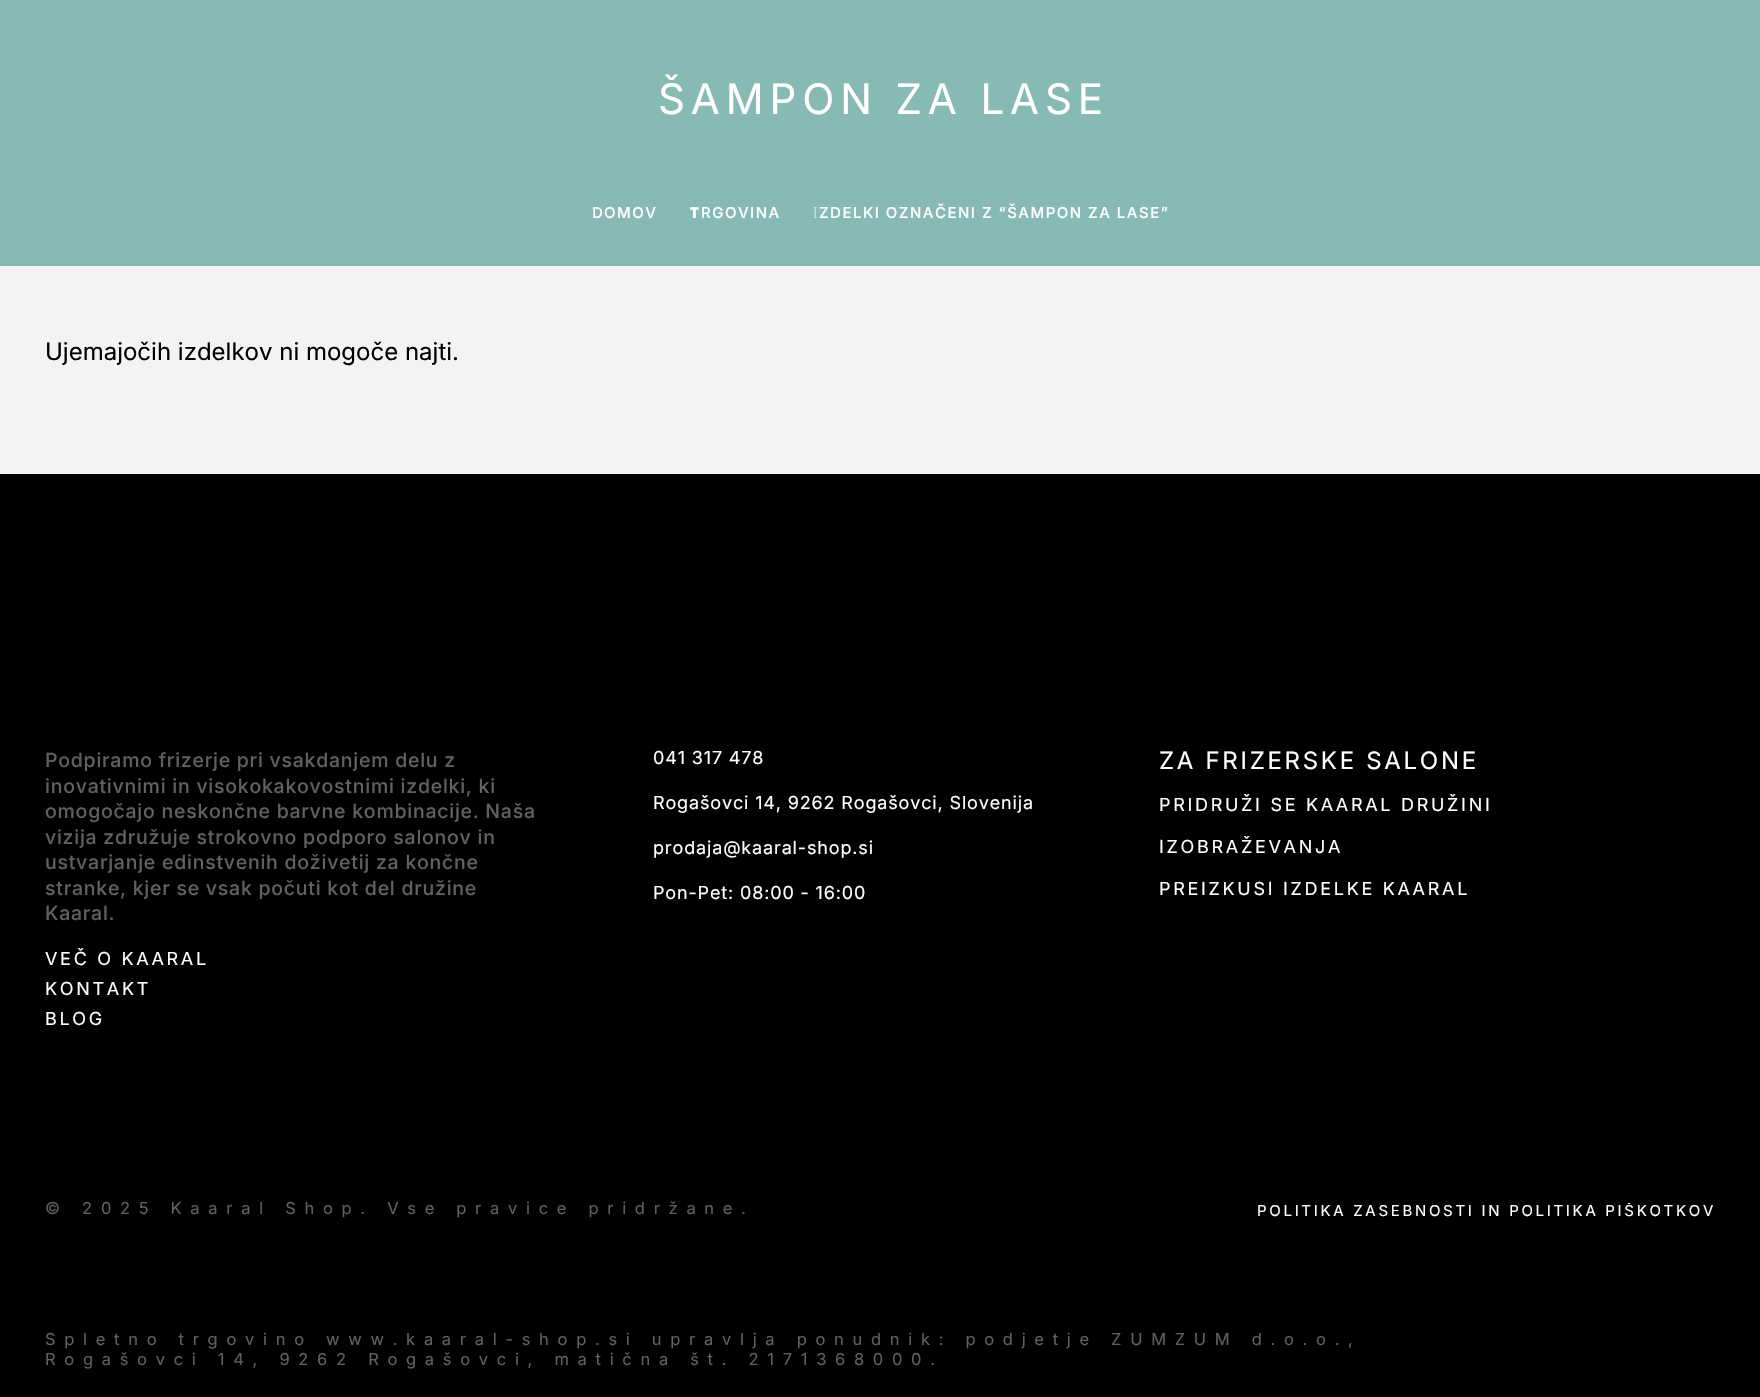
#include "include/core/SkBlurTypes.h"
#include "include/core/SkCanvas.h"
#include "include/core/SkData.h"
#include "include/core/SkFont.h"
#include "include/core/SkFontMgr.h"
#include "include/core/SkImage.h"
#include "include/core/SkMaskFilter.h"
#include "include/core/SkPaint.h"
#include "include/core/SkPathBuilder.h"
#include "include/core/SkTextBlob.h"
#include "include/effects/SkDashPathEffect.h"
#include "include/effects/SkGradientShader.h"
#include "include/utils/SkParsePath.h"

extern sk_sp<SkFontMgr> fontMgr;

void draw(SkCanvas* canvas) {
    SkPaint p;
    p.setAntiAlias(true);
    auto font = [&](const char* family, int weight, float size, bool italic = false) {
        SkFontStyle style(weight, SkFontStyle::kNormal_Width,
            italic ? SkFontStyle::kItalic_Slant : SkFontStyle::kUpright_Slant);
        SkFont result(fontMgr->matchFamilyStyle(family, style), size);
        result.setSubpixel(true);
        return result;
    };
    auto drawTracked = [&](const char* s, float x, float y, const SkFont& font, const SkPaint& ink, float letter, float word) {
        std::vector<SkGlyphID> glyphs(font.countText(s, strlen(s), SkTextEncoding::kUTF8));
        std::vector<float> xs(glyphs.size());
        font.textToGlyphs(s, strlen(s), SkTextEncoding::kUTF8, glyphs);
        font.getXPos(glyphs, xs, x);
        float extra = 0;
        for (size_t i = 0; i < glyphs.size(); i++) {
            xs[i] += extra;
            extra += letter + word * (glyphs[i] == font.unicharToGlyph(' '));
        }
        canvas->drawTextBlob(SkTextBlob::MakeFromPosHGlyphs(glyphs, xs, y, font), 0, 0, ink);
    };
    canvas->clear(0xFFF3F3F3);
    p.setColor(0xFF88BAB5);
    canvas->drawRect(SkRect::MakeLTRB(0, 0, 1760, 266), p);
    auto font1 = font("Inter", 400, 42);
    p.setColor(0xFFFFFFFF);
    drawTracked("ŠAMPON ZA LASE", 658, 114, font1, p, 5.9f, 0);
    auto font2 = font("Noto Sans", 500, 15);
    drawTracked("D", 592, 218, font2, p, 1.5f, 0);
    auto font3 = font("Inter", 500, 15);
    drawTracked("OMOV", 604, 218, font3, p, 1.5f, 0);
    auto font4 = font("Noto Sans", 900, 15);
    drawTracked("T", 690, 218, font4, p, 1.5f, 0);
    drawTracked("RGOVINA", 701, 218, font3, p, 1.5f, 0);
    auto font5 = font("Noto Sans", 100, 15);
    drawTracked("I", 813, 218, font5, p, 1.5f, 0);
    drawTracked("ZDELKI OZNAČENI Z “ŠAMPON ZA LASE”", 819, 218, font3, p, 1.5f, 0);
    auto font6 = font("Inter", 400, 24);
    p.setColor(0xFF000000);
    canvas->drawString("Ujemajočih izdelkov ni mogoče najti.", 45, 360, font6, p);
    canvas->drawRect(SkRect::MakeLTRB(0, 474, 1760, 1397), p);
    auto font7 = font("Inter", 500, 19.5f);
    p.setColor(0xFF616161);
    {
        const struct { const char* s; float x, y; } items[] = {
            {"Podpiramo frizerje pri vsakdanjem delu z", 45, 767},
            {"inovativnimi in visokokakovostnimi izdelki, ki", 45, 793},
            {"omogočajo neskončne barvne kombinacije. Naša", 45, 818},
            {"vizija združuje strokovno podporo salonov in", 45, 844},
            {"ustvarjanje edinstvenih doživetij za končne", 45, 869},
            {"stranke, kjer se vsak počuti kot del družine", 45, 895},
            {"Kaaral.", 45, 920},
        };
        for (auto [s, x, y] : items) {
            drawTracked(s, x, y, font7, p, 0.75f, 0);
        }
    }
    auto font8 = font("Inter", 400, 18);
    p.setColor(0xFFFFFFFF);
    {
        const struct { const char* s; float x, y; } items[] = {
            {"VEČ O KAARAL", 45, 965},
            {"KONTAKT", 45, 995},
            {"BLOG", 45, 1025},
        };
        for (auto [s, x, y] : items) {
            drawTracked(s, x, y, font8, p, 2.7f, 0);
        }
    }
    {
        const struct { const char* s; float x, y; } items[] = {
            {"041 317 478", 653, 764},
            {"Rogašovci 14, 9262 Rogašovci, Slovenija", 653, 809},
            {"prodaja@kaaral-shop.si", 653, 854},
            {"Pon-Pet: 08:00 - 16:00", 653, 899},
        };
        for (auto [s, x, y] : items) {
            drawTracked(s, x, y, font8, p, 0.85f, 0);
        }
    }
    drawTracked("ZA FRIZERSKE SALONE", 1159, 769, font6, p, 2.7f, 0);
    {
        const struct { const char* s; float x, y; } items[] = {
            {"PRIDRUŽI SE KAARAL DRUŽINI", 1159, 811},
            {"IZOBRAŽEVANJA", 1159, 853},
            {"PREIZKUSI IZDELKE KAARAL", 1159, 895},
        };
        for (auto [s, x, y] : items) {
            drawTracked(s, x, y, font8, p, 2.7f, 0);
        }
    }
    auto font9 = font("Inter", 400, 16.5f);
    p.setColor(0xFF616161);
    drawTracked("© 2025 Kaaral Shop. Vse pravice pridržane.", 45, 1214, font9, p, 8.7f, 0);
    canvas->save();
    canvas->clipRect(SkRect::MakeLTRB(858, 1203, 1739, 1245));
    auto font10 = font("Inter", 400, 15);
    p.setColor(0xFFFFFFFF);
    drawTracked("POLITIKA ZASEBNOSTI IN POLITIKA PIŠKOTKOV", 1257, 1216, font10, p, 2.7f, 0);
    canvas->restore();
    p.setColor(0xFF616161);
    drawTracked("Spletno trgovino www.kaaral-shop.si upravlja ponudnik: podjetje ZUMZUM d.o.o.,", 45, 1345, font9, p, 8.7f, 0);
    drawTracked("Rogašovci 14, 9262 Rogašovci, matična št. 2171368000.", 45, 1365, font9, p, 8.7f, 0);
}
